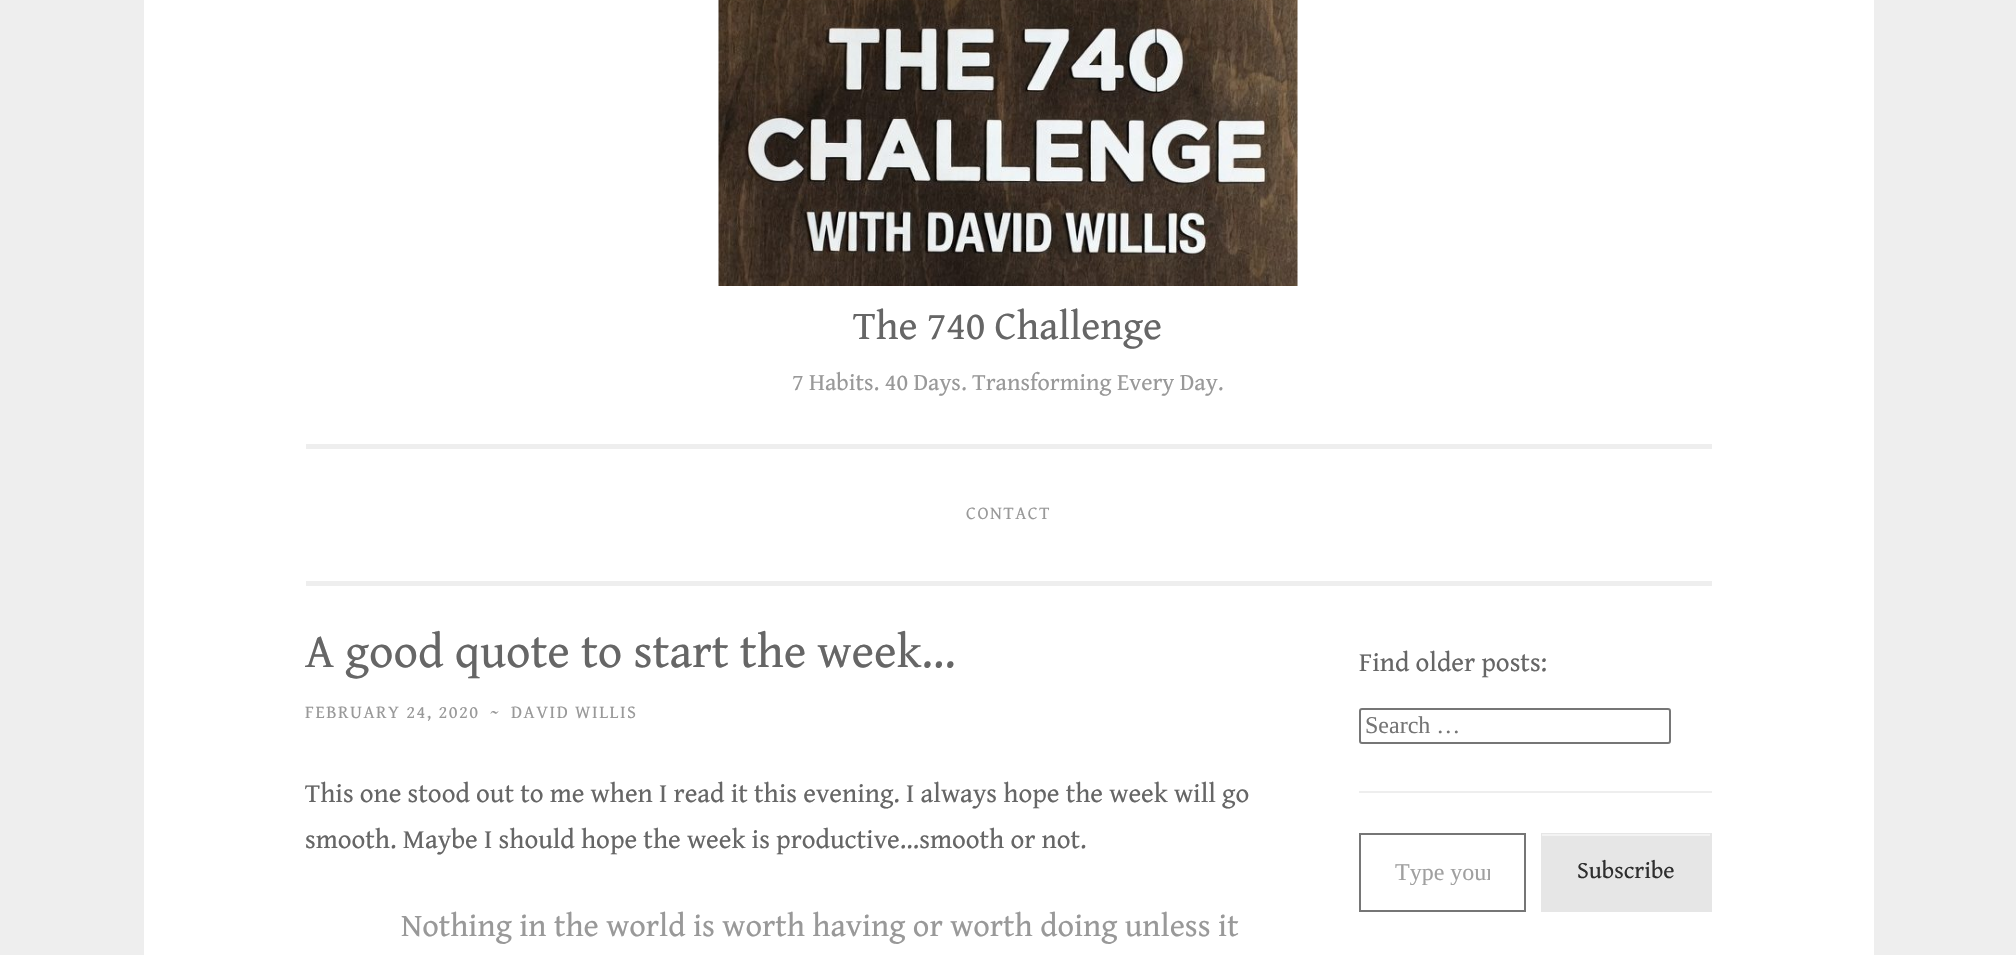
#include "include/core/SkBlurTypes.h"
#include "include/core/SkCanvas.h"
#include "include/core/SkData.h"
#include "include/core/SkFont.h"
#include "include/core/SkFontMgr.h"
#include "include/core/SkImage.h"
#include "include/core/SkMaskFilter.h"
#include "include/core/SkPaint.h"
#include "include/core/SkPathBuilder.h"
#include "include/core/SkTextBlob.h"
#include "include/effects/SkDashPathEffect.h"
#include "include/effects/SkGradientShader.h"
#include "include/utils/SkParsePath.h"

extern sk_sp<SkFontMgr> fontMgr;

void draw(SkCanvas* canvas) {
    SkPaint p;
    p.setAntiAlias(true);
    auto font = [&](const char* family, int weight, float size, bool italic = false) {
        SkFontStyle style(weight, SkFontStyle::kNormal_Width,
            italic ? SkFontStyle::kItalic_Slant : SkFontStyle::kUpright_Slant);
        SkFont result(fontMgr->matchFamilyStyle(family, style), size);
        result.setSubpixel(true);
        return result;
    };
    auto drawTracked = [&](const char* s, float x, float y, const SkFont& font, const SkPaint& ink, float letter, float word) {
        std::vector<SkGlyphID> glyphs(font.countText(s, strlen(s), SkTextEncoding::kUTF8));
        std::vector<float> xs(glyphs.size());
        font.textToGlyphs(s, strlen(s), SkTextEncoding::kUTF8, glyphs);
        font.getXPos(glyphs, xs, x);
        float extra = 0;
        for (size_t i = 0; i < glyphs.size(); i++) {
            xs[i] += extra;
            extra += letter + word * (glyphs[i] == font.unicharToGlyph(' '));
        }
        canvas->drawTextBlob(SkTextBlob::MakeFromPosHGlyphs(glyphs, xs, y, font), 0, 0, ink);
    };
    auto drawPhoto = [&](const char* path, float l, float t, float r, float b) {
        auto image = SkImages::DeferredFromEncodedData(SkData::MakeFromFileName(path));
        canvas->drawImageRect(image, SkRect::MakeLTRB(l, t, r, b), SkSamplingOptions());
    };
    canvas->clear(0xFFEEEEEE);
    p.setColor(0xFFFFFFFF);
    canvas->drawRect(SkRect::MakeLTRB(144, 0, 1874, 955), p);
    p.setColor(0xFFEEEEEE);
    canvas->drawRect(SkRect::MakeLTRB(306, 581, 1712, 586), p);
    drawPhoto("media/1.png", 718, 0, 1298, 286);
    auto font1 = font("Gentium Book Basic", 400, 40.5f);
    p.setColor(0xFF666666);
    canvas->drawString("The 740 Challenge", 853, 339, font1, p);
    auto font2 = font("Gentium Book Basic", 400, 24);
    p.setColor(0xFF999999);
    canvas->drawString("7 Habits. 40 Days. Transforming Every Day.", 792, 390, font2, p);
    p.setColor(0xFFEEEEEE);
    canvas->drawRect(SkRect::MakeLTRB(306, 444, 1712, 449), p);
    auto font3 = font("Gentium Book Basic", 400, 18.25f);
    p.setColor(0xFF999999);
    drawTracked("CONTACT", 966, 519, font3, p, 1.5f, 0);
    auto font4 = font("Gentium Book Basic", 400, 48);
    p.setColor(0xFF666666);
    canvas->drawString("A good quote to start the week…", 305, 667, font4, p);
    p.setColor(0xFF999999);
    {
        const struct { const char* s; float x, y; } items[] = {
            {"FEBRUARY 24, 2020", 305, 718},
            {"~", 490, 718},
            {"DAVID WILLIS", 511, 718},
        };
        for (auto [s, x, y] : items) {
            drawTracked(s, x, y, font3, p, 1.5f, 0);
        }
    }
    auto font5 = font("Gentium Book Basic", 400, 27);
    p.setColor(0xFF666666);
    canvas->drawString("This one stood out to me when I read it this evening. I always hope the week will go", 305, 802, font5, p);
    canvas->drawString("smooth. Maybe I should hope the week is productive…smooth or not.", 305, 848, font5, p);
    auto font6 = font("Gentium Book Basic", 400, 32.4f);
    p.setColor(0xFF999999);
    canvas->drawString("Nothing in the world is worth having or worth doing unless it", 401, 936, font6, p);
    p.setColor(0xFFEEEEEE);
    canvas->drawRect(SkRect::MakeLTRB(1359, 791, 1712, 793), p);
    p.setColor(0xFF666666);
    canvas->drawString("Find older posts:", 1359, 671, font5, p);
    p.setStyle(SkPaint::kStroke_Style);
    p.setStrokeWidth(2);
    p.setColor(0xFF767676);
    canvas->drawRoundRect(SkRect::MakeLTRB(1360, 709, 1670, 743), 2, 2, p);
    auto font7 = font("Liberation Serif", 400, 24);
    p.setStyle(SkPaint::kFill_Style);
    p.setColor(0xFF757575);
    canvas->drawString("Search …", 1365, 733, font7, p);
    p.setStyle(SkPaint::kStroke_Style);
    p.setColor(0xFF767676);
    canvas->drawRect(SkRect::MakeLTRB(1360, 834, 1525, 911), p);
    canvas->save();
    canvas->clipRect(SkRect::MakeLTRB(1395, 858, 1490, 885));
    p.setStyle(SkPaint::kFill_Style);
    p.setColor(0xFFA0A0A0);
    canvas->drawString("Type your", 1395, 880, font7, p);
    canvas->restore();
    p.setColor(0xFFE6E6E6);
    canvas->drawRect(SkRect::MakeLTRB(1541, 833, 1712, 912), p);
    p.setColor(0xFFF3F3F3);
    canvas->drawRect(SkRect::MakeLTRB(1542, 834, 1710, 836), p);
    p.setColor(0xFF2E2E2E);
    canvas->drawString("Subscribe", 1577, 878, font2, p);
}
